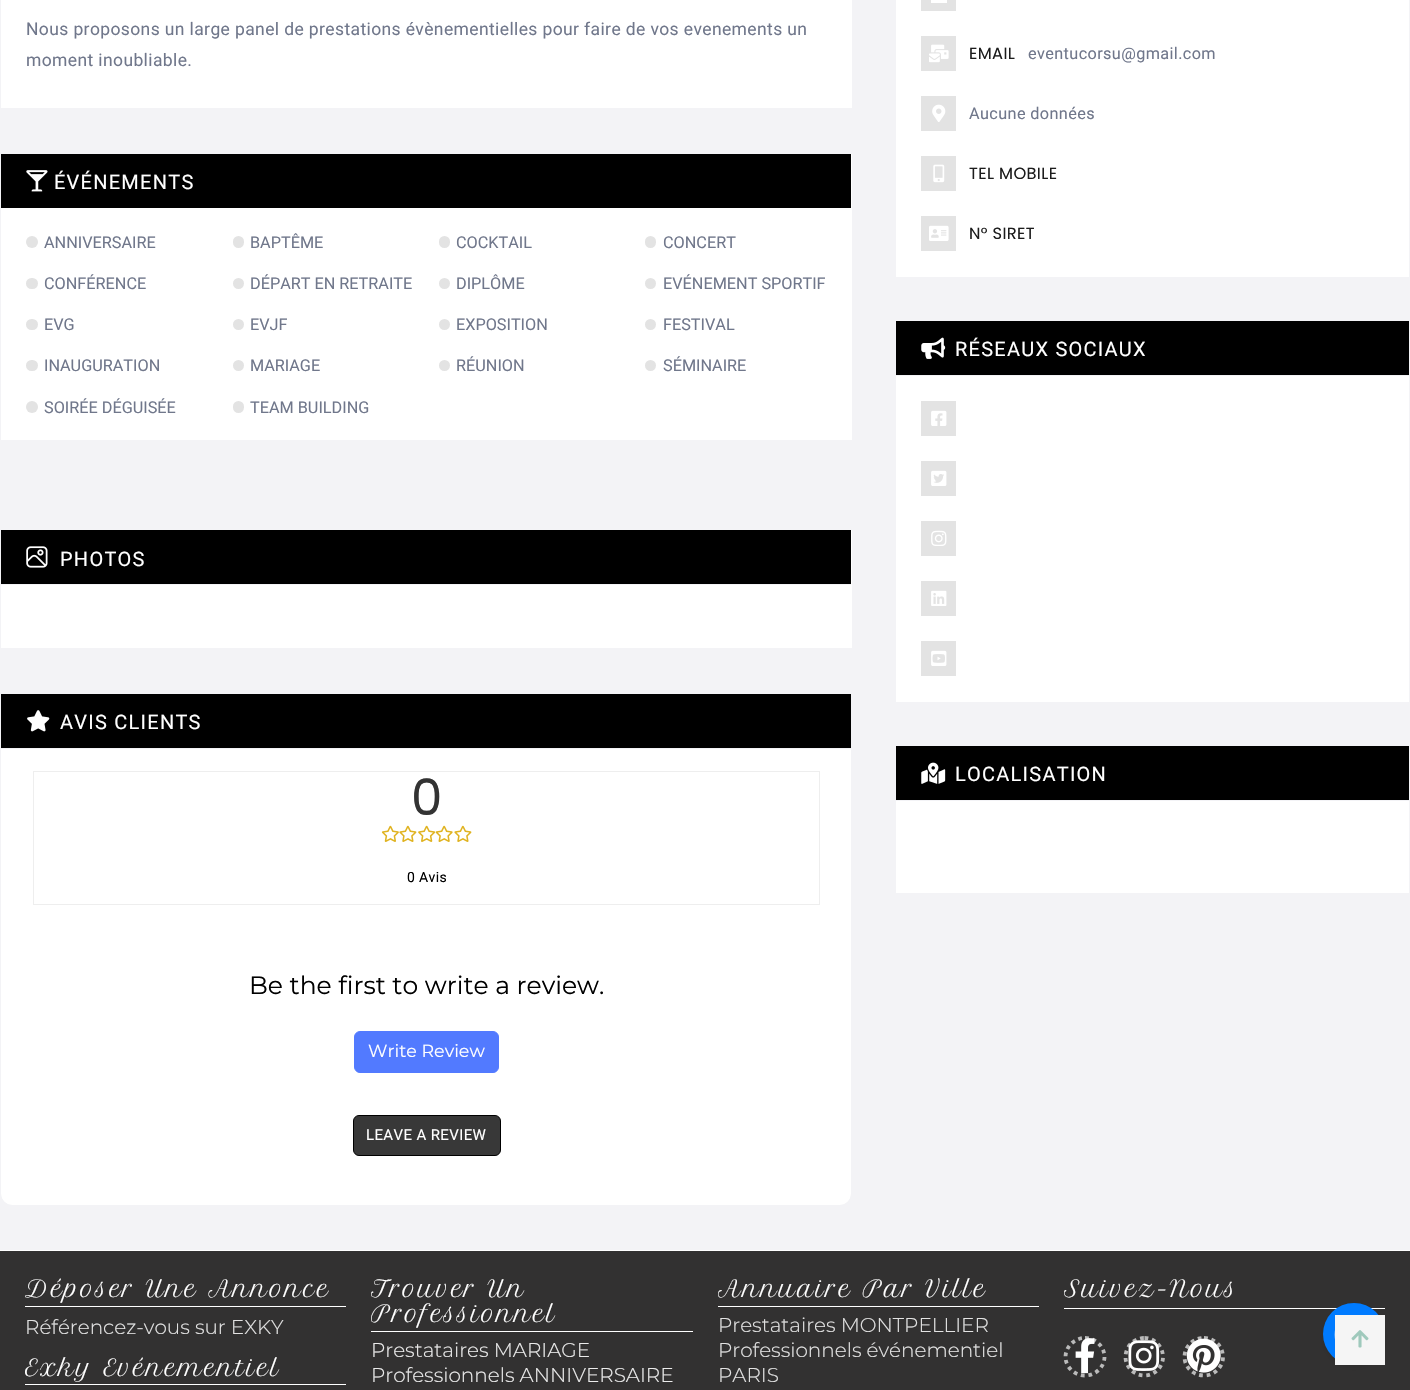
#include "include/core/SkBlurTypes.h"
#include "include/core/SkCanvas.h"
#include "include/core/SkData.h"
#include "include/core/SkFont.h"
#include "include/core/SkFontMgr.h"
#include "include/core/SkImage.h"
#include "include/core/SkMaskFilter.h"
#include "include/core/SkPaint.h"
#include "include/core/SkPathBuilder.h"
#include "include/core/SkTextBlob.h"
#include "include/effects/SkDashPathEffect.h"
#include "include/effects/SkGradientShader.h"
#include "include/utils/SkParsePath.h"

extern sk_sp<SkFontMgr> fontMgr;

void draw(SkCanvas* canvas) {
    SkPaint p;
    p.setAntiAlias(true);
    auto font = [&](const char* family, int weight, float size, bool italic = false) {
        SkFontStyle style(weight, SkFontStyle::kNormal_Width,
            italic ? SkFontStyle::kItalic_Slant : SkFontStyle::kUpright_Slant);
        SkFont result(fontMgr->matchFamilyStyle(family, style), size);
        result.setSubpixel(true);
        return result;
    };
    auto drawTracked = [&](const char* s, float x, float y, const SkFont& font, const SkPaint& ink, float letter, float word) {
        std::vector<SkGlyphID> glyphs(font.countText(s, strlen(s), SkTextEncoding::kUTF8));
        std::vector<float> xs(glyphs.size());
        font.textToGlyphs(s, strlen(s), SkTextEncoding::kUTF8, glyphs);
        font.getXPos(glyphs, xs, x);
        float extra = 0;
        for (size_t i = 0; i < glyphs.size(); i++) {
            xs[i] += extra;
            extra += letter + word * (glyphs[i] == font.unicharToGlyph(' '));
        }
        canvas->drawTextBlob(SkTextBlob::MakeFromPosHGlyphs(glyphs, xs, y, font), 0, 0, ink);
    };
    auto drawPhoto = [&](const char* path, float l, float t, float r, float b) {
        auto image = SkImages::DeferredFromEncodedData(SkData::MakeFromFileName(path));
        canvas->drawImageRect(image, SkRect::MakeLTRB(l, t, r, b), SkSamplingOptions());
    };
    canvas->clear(0xFFFFFFFF);
    p.setColor(0xFFF3F3F6);
    canvas->drawRect(SkRect::MakeLTRB(0, 0, 1410, 1250), p);
    p.setColor(0xFFFFFFFF);
    canvas->drawRect(SkRect::MakeLTRB(1, 0, 852, 108), p);
    auto font1 = font("Roboto", 400, 17.5f);
    p.setColor(0xFF70778B);
    drawTracked("Nous proposons un large panel de prestations évènementielles pour faire de vos evenements un", 26, 35, font1, p, 0.38f, 0);
    drawTracked("moment inoubliable.", 26, 66, font1, p, 0.38f, 0);
    p.setColor(0xFFFFFFFF);
    canvas->drawRect(SkRect::MakeLTRB(1, 154, 852, 440), p);
    p.setColor(0xFF000000);
    canvas->drawRect(SkRect::MakeLTRB(1, 154, 851, 208), p);
    drawPhoto("media/1.png", 26, 170, 48, 192);
    auto font2 = font("Roboto", 400, 20);
    p.setColor(0xFFFFFFFF);
    drawTracked("ÉVÉNEMENTS", 54, 189, font2, p, 1.25f, 0);
    p.setColor(0xFFE3E3E3);
    canvas->drawCircle(32, 242, 6, p);
    auto font3 = font("Roboto", 400, 16.25f);
    p.setColor(0xFF70778B);
    canvas->drawString("ANNIVERSAIRE", 44, 248, font3, p);
    p.setColor(0xFFE3E3E3);
    canvas->drawRoundRect(SkRect::MakeLTRB(233, 236, 244, 248), 5.5f, 5.5f, p);
    p.setColor(0xFF70778B);
    canvas->drawString("BAPTÊME", 250, 248, font3, p);
    p.setColor(0xFFE3E3E3);
    canvas->drawRoundRect(SkRect::MakeLTRB(439, 236, 450, 248), 5.5f, 5.5f, p);
    p.setColor(0xFF70778B);
    canvas->drawString("COCKTAIL", 456, 248, font3, p);
    p.setColor(0xFFE3E3E3);
    canvas->drawRoundRect(SkRect::MakeLTRB(645, 236, 656, 248), 5.5f, 5.5f, p);
    p.setColor(0xFF70778B);
    canvas->drawString("CONCERT", 663, 248, font3, p);
    p.setColor(0xFFE3E3E3);
    canvas->drawRoundRect(SkRect::MakeLTRB(26, 278, 38, 289), 5.5f, 5.5f, p);
    p.setColor(0xFF70778B);
    canvas->drawString("CONFÉRENCE", 44, 289, font3, p);
    p.setColor(0xFFE3E3E3);
    canvas->drawCircle(238.5f, 283.5f, 5.5f, p);
    p.setColor(0xFF70778B);
    canvas->drawString("DÉPART EN RETRAITE", 250, 289, font3, p);
    p.setColor(0xFFE3E3E3);
    canvas->drawCircle(444.5f, 283.5f, 5.5f, p);
    p.setColor(0xFF70778B);
    canvas->drawString("DIPLÔME", 456, 289, font3, p);
    p.setColor(0xFFE3E3E3);
    canvas->drawCircle(650.5f, 283.5f, 5.5f, p);
    p.setColor(0xFF70778B);
    canvas->drawString("EVÉNEMENT SPORTIF", 663, 289, font3, p);
    p.setColor(0xFFE3E3E3);
    canvas->drawRoundRect(SkRect::MakeLTRB(26, 319, 38, 330), 5.5f, 5.5f, p);
    p.setColor(0xFF70778B);
    canvas->drawString("EVG", 44, 330, font3, p);
    p.setColor(0xFFE3E3E3);
    canvas->drawCircle(238.5f, 324.5f, 5.5f, p);
    p.setColor(0xFF70778B);
    canvas->drawString("EVJF", 250, 330, font3, p);
    p.setColor(0xFFE3E3E3);
    canvas->drawCircle(444.5f, 324.5f, 5.5f, p);
    p.setColor(0xFF70778B);
    canvas->drawString("EXPOSITION", 456, 330, font3, p);
    p.setColor(0xFFE3E3E3);
    canvas->drawCircle(650.5f, 324.5f, 5.5f, p);
    p.setColor(0xFF70778B);
    canvas->drawString("FESTIVAL", 663, 330, font3, p);
    p.setColor(0xFFE3E3E3);
    canvas->drawRoundRect(SkRect::MakeLTRB(26, 360, 38, 371), 5.5f, 5.5f, p);
    p.setColor(0xFF70778B);
    canvas->drawString("INAUGURATION", 44, 371, font3, p);
    p.setColor(0xFFE3E3E3);
    canvas->drawCircle(238.5f, 365.5f, 5.5f, p);
    p.setColor(0xFF70778B);
    canvas->drawString("MARIAGE", 250, 371, font3, p);
    p.setColor(0xFFE3E3E3);
    canvas->drawCircle(444.5f, 365.5f, 5.5f, p);
    p.setColor(0xFF70778B);
    canvas->drawString("RÉUNION", 456, 371, font3, p);
    p.setColor(0xFFE3E3E3);
    canvas->drawCircle(650.5f, 365.5f, 5.5f, p);
    p.setColor(0xFF70778B);
    canvas->drawString("SÉMINAIRE", 663, 371, font3, p);
    p.setColor(0xFFE3E3E3);
    canvas->drawCircle(32, 407, 6, p);
    p.setColor(0xFF70778B);
    canvas->drawString("SOIRÉE DÉGUISÉE", 44, 413, font3, p);
    p.setColor(0xFFE3E3E3);
    canvas->drawRoundRect(SkRect::MakeLTRB(233, 401, 244, 413), 5.5f, 5.5f, p);
    p.setColor(0xFF70778B);
    canvas->drawString("TEAM BUILDING", 250, 413, font3, p);
    {
        const struct { float l, t, r, b; SkColor color; } items[] = {
            {1, 530, 852, 648, 0xFFFFFFFF},
            {1, 530, 851, 584, 0xFF000000},
            {1, 584, 851, 585, 0xFFF3F3F6},
        };
        for (auto [l, t, r, b, color] : items) {
            p.setColor(color);
            canvas->drawRect(SkRect::MakeLTRB(l, t, r, b), p);
        }
    }
    drawPhoto("media/2.png", 26, 546, 48, 568);
    p.setColor(0xFFFFFFFF);
    drawTracked("PHOTOS", 60, 566, font2, p, 1.25f, 0);
    p.setColor(0xFF000000);
    canvas->drawRect(SkRect::MakeLTRB(1, 694, 851, 748), p);
    drawPhoto("media/3.png", 27, 710, 50, 732);
    p.setColor(0xFFFFFFFF);
    drawTracked("AVIS CLIENTS", 60, 729, font2, p, 1.25f, 0);
    canvas->drawRect(SkRect::MakeLTRB(1, 749, 851, 905), p);
    p.setStyle(SkPaint::kStroke_Style);
    p.setStrokeWidth(1);
    p.setColor(0xFFEEEEEE);
    canvas->drawRect(SkRect::MakeLTRB(33.5f, 771.5f, 819.5f, 904.5f), p);
    auto font4 = font("Poppins", 400, 50);
    p.setStyle(SkPaint::kFill_Style);
    p.setColor(0xFF333333);
    drawTracked("0", 411, 815, font4, p, 0.38f, 0);
    drawPhoto("media/4.png", 381, 825, 399, 842);
    drawPhoto("media/5.png", 399, 825, 417, 842);
    drawPhoto("media/6.png", 418, 825, 436, 842);
    drawPhoto("media/7.png", 435, 825, 453, 842);
    drawPhoto("media/5.png", 454, 825, 472, 842);
    auto font5 = font("Roboto", 400, 14);
    p.setColor(0xFF000000);
    drawTracked("0 Avis", 407, 882, font5, p, 0.38f, 0);
    p.setColor(0xFFFFFFFF);
    canvas->drawPath(SkPathBuilder().moveTo(1, 905).lineTo(851, 905).lineTo(851, 1194).cubicTo(851, 1200, 846, 1205, 840, 1205).lineTo(12, 1205).cubicTo(6, 1205, 1, 1200, 1, 1194).close().detach(), p);
    p.setColor(0xFFF3F3F6);
    canvas->drawPath(SkPathBuilder(SkPathFillType::kEvenOdd).moveTo(0, 905).lineTo(852, 905).lineTo(852, 1194).cubicTo(852, 1201, 847, 1206, 840, 1206).lineTo(12, 1206).cubicTo(6, 1206, 0, 1201, 0, 1194).close().moveTo(1, 905).lineTo(851, 905).lineTo(851, 1194).cubicTo(851, 1200, 846, 1205, 840, 1205).lineTo(12, 1205).cubicTo(6, 1205, 1, 1200, 1, 1194).close().detach(), p);
    auto font6 = font("Montserrat", 400, 25);
    p.setColor(0xFF000000);
    canvas->drawString("Be the first to write a review.", 249, 994, font6, p);
    p.setColor(0xFF527AFF);
    canvas->drawRoundRect(SkRect::MakeLTRB(354.5f, 1031.5f, 498.5f, 1072.5f), 5.5f, 5.5f, p);
    p.setStyle(SkPaint::kStroke_Style);
    canvas->drawRoundRect(SkRect::MakeLTRB(354.5f, 1031.5f, 498.5f, 1072.5f), 5.5f, 5.5f, p);
    auto font7 = font("Montserrat", 400, 17.5f);
    p.setStyle(SkPaint::kFill_Style);
    p.setColor(0xFFFFFFFF);
    canvas->drawString("Write Review", 368, 1057, font7, p);
    p.setColor(0xFF383838);
    canvas->drawRoundRect(SkRect::MakeLTRB(353.5f, 1115.5f, 500.5f, 1155.5f), 5.5f, 5.5f, p);
    p.setStyle(SkPaint::kStroke_Style);
    p.setColor(0xFF000000);
    canvas->drawRoundRect(SkRect::MakeLTRB(353.5f, 1115.5f, 500.5f, 1155.5f), 5.5f, 5.5f, p);
    auto font8 = font("Roboto", 400, 15);
    p.setStyle(SkPaint::kFill_Style);
    p.setColor(0xFFFFFFFF);
    drawTracked("LEAVE A REVIEW", 366, 1140, font8, p, 0.38f, 0);
    {
        const struct { float l, t, r, b; SkColor color; } items[] = {
            {896, 0, 1409, 277, 0xFFFFFFFF},
            {921, 0, 956, 11, 0xFFE3E3E3},
            {931, 0, 947, 3, 0xFFFFFFFF},
            {921, 36, 956, 71, 0xFFE3E3E3},
        };
        for (auto [l, t, r, b, color] : items) {
            p.setColor(color);
            canvas->drawRect(SkRect::MakeLTRB(l, t, r, b), p);
        }
    }
    drawPhoto("media/8.png", 929, 44, 949, 63);
    auto font9 = font("Poppins", 400, 16.25f);
    p.setColor(0xFF1C1C1C);
    drawTracked("EMAIL", 969, 59, font9, p, 0.38f, 0);
    p.setColor(0xFF70778B);
    drawTracked("eventucorsu@gmail.com", 1028, 59, font3, p, 0.38f, 0);
    p.setColor(0xFFE3E3E3);
    canvas->drawRect(SkRect::MakeLTRB(921, 96, 956, 131), p);
    drawPhoto("media/9.png", 932, 104, 946, 122);
    p.setColor(0xFF70778B);
    drawTracked("Aucune données", 969, 119, font3, p, 0.38f, 0);
    p.setColor(0xFFE3E3E3);
    canvas->drawRect(SkRect::MakeLTRB(921, 156, 956, 191), p);
    drawPhoto("media/10.png", 933, 164, 945, 183);
    p.setColor(0xFF1C1C1C);
    drawTracked("TEL MOBILE", 969, 179, font9, p, 0.38f, 0);
    p.setColor(0xFFE3E3E3);
    canvas->drawRect(SkRect::MakeLTRB(921, 216, 956, 251), p);
    drawPhoto("media/11.png", 929, 225, 949, 241);
    p.setColor(0xFF1C1C1C);
    drawTracked("N° SIRET", 969, 239, font9, p, 0.38f, 0);
    p.setColor(0xFFFFFFFF);
    canvas->drawRect(SkRect::MakeLTRB(896, 376, 1409, 702), p);
    p.setColor(0xFF000000);
    canvas->drawRect(SkRect::MakeLTRB(896, 321, 1409, 375), p);
    drawPhoto("media/12.png", 921, 337, 946, 359);
    p.setColor(0xFFFFFFFF);
    drawTracked("RÉSEAUX SOCIAUX", 955, 356, font2, p, 1.25f, 0);
    p.setColor(0xFFE3E3E3);
    canvas->drawRect(SkRect::MakeLTRB(921, 401, 956, 436), p);
    drawPhoto("media/13.png", 931, 410, 947, 426);
    canvas->drawRect(SkRect::MakeLTRB(921, 461, 956, 496), p);
    drawPhoto("media/14.png", 931, 470, 947, 486);
    canvas->drawRect(SkRect::MakeLTRB(921, 521, 956, 556), p);
    drawPhoto("media/15.png", 931, 530, 947, 546);
    canvas->drawRect(SkRect::MakeLTRB(921, 581, 956, 616), p);
    drawPhoto("media/16.png", 931, 590, 947, 606);
    canvas->drawRect(SkRect::MakeLTRB(921, 641, 956, 676), p);
    drawPhoto("media/17.png", 931, 650, 947, 666);
    p.setColor(0xFFFFFFFF);
    canvas->drawRect(SkRect::MakeLTRB(896, 801, 1409, 893), p);
    p.setColor(0xFF000000);
    canvas->drawRect(SkRect::MakeLTRB(896, 746, 1409, 800), p);
    drawPhoto("media/18.png", 921, 762, 946, 784);
    p.setColor(0xFFFFFFFF);
    drawTracked("LOCALISATION", 955, 781, font2, p, 1.25f, 0);
    p.setColor(0xFF323131);
    canvas->drawRect(SkRect::MakeLTRB(0, 1251, 1410, 1390), p);
    auto font10 = font("Petit Formal Script", 400, 22.5f);
    p.setColor(0xFFFFFFFF);
    drawTracked("Déposer Une Annonce", 25, 1297, font10, p, 2.1f, 0);
    canvas->drawRect(SkRect::MakeLTRB(25, 1306, 346, 1307), p);
    auto font11 = font("Montserrat", 300, 20);
    p.setColor(0xFFE3E3E3);
    canvas->drawString("Référencez-vous sur EXKY", 25, 1334, font11, p);
    p.setColor(0xFFFFFFFF);
    drawTracked("Exky Evénementiel", 25, 1376, font10, p, 2.1f, 0);
    canvas->drawRect(SkRect::MakeLTRB(25, 1384, 346, 1385), p);
    drawTracked("Trouver Un", 371, 1297, font10, p, 2.1f, 0);
    drawTracked("Professionnel", 371, 1322, font10, p, 2.1f, 0);
    canvas->drawRect(SkRect::MakeLTRB(371, 1331, 693, 1332), p);
    p.setColor(0xFFEBEBEB);
    canvas->drawString("Prestataires MARIAGE", 371, 1357, font11, p);
    canvas->drawString("Professionnels ANNIVERSAIRE", 371, 1382, font11, p);
    p.setColor(0xFFFFFFFF);
    drawTracked("Annuaire Par Ville", 718, 1297, font10, p, 2.1f, 0);
    canvas->drawRect(SkRect::MakeLTRB(718, 1306, 1039, 1307), p);
    p.setColor(0xFFE3E3E3);
    {
        const struct { const char* s; float x, y; } items[] = {
            {"Prestataires MONTPELLIER", 718, 1332},
            {"Professionnels événementiel", 718, 1357},
            {"PARIS", 718, 1382},
        };
        for (auto [s, x, y] : items) {
            canvas->drawString(s, x, y, font11, p);
        }
    }
    p.setColor(0xFFFFFFFF);
    drawTracked("Suivez-Nous", 1064, 1297, font10, p, 2.1f, 0);
    canvas->drawRect(SkRect::MakeLTRB(1064, 1308, 1385, 1309), p);
    p.setStyle(SkPaint::kStroke_Style);
    p.setStrokeWidth(3.8f);
    p.setColor(0xFFBABABA);
    p.setPathEffect(SkDashPathEffect::Make({{3.75f, 3.75f}}, 0));
    canvas->drawPath(SkPathBuilder().moveTo(1085, 1338).cubicTo(1095.5f, 1338, 1104.5f, 1346.5f, 1104.5f, 1357).cubicTo(1104.5f, 1367, 1095.5f, 1375.5f, 1085, 1375.5f).cubicTo(1074.5f, 1375.5f, 1065.5f, 1367, 1065.5f, 1357).cubicTo(1065.5f, 1346.5f, 1074.5f, 1338, 1085, 1338).close().detach(), p);
    p.setPathEffect(nullptr);
    drawPhoto("media/19.png", 1075, 1338, 1095, 1374);
    p.setPathEffect(SkDashPathEffect::Make({{3.75f, 3.75f}}, 0));
    canvas->drawPath(SkPathBuilder().moveTo(1144.5f, 1338).cubicTo(1154.5f, 1338, 1163, 1346.5f, 1163, 1357).cubicTo(1163, 1367, 1154.5f, 1375.5f, 1144.5f, 1375.5f).cubicTo(1134, 1375.5f, 1125.5f, 1367, 1125.5f, 1357).cubicTo(1125.5f, 1346.5f, 1134, 1338, 1144.5f, 1338).close().detach(), p);
    p.setPathEffect(nullptr);
    drawPhoto("media/20.png", 1128, 1340, 1160, 1371);
    p.setPathEffect(SkDashPathEffect::Make({{3.75f, 3.75f}}, 0));
    canvas->drawPath(SkPathBuilder().moveTo(1204, 1338).cubicTo(1214.5f, 1338, 1223, 1346.5f, 1223, 1357).cubicTo(1223, 1367, 1214.5f, 1375.5f, 1204, 1375.5f).cubicTo(1193, 1375.5f, 1184.5f, 1367, 1184.5f, 1357).cubicTo(1184.5f, 1346.5f, 1193, 1338, 1204, 1338).close().detach(), p);
    p.setPathEffect(nullptr);
    drawPhoto("media/21.png", 1186, 1338, 1221, 1373);
    p.setStyle(SkPaint::kFill_Style);
    p.setColor(0x12000000);
    p.setMaskFilter(SkMaskFilter::MakeBlur(kNormal_SkBlurStyle, 2));
    canvas->drawRoundRect(SkRect::MakeLTRB(1323, 1305, 1385, 1368), 31, 31, p);
    p.setMaskFilter(nullptr);
    p.setColor(0xFF007BFF);
    canvas->drawCircle(1354, 1334, 31, p);
    drawPhoto("media/22.png", 1334, 1330, 1335, 1339);
    p.setColor(0xFFF5F5F5);
    canvas->drawRect(SkRect::MakeLTRB(1335, 1315, 1385, 1365), p);
    drawPhoto("media/23.png", 1351, 1330, 1369, 1348);
}
